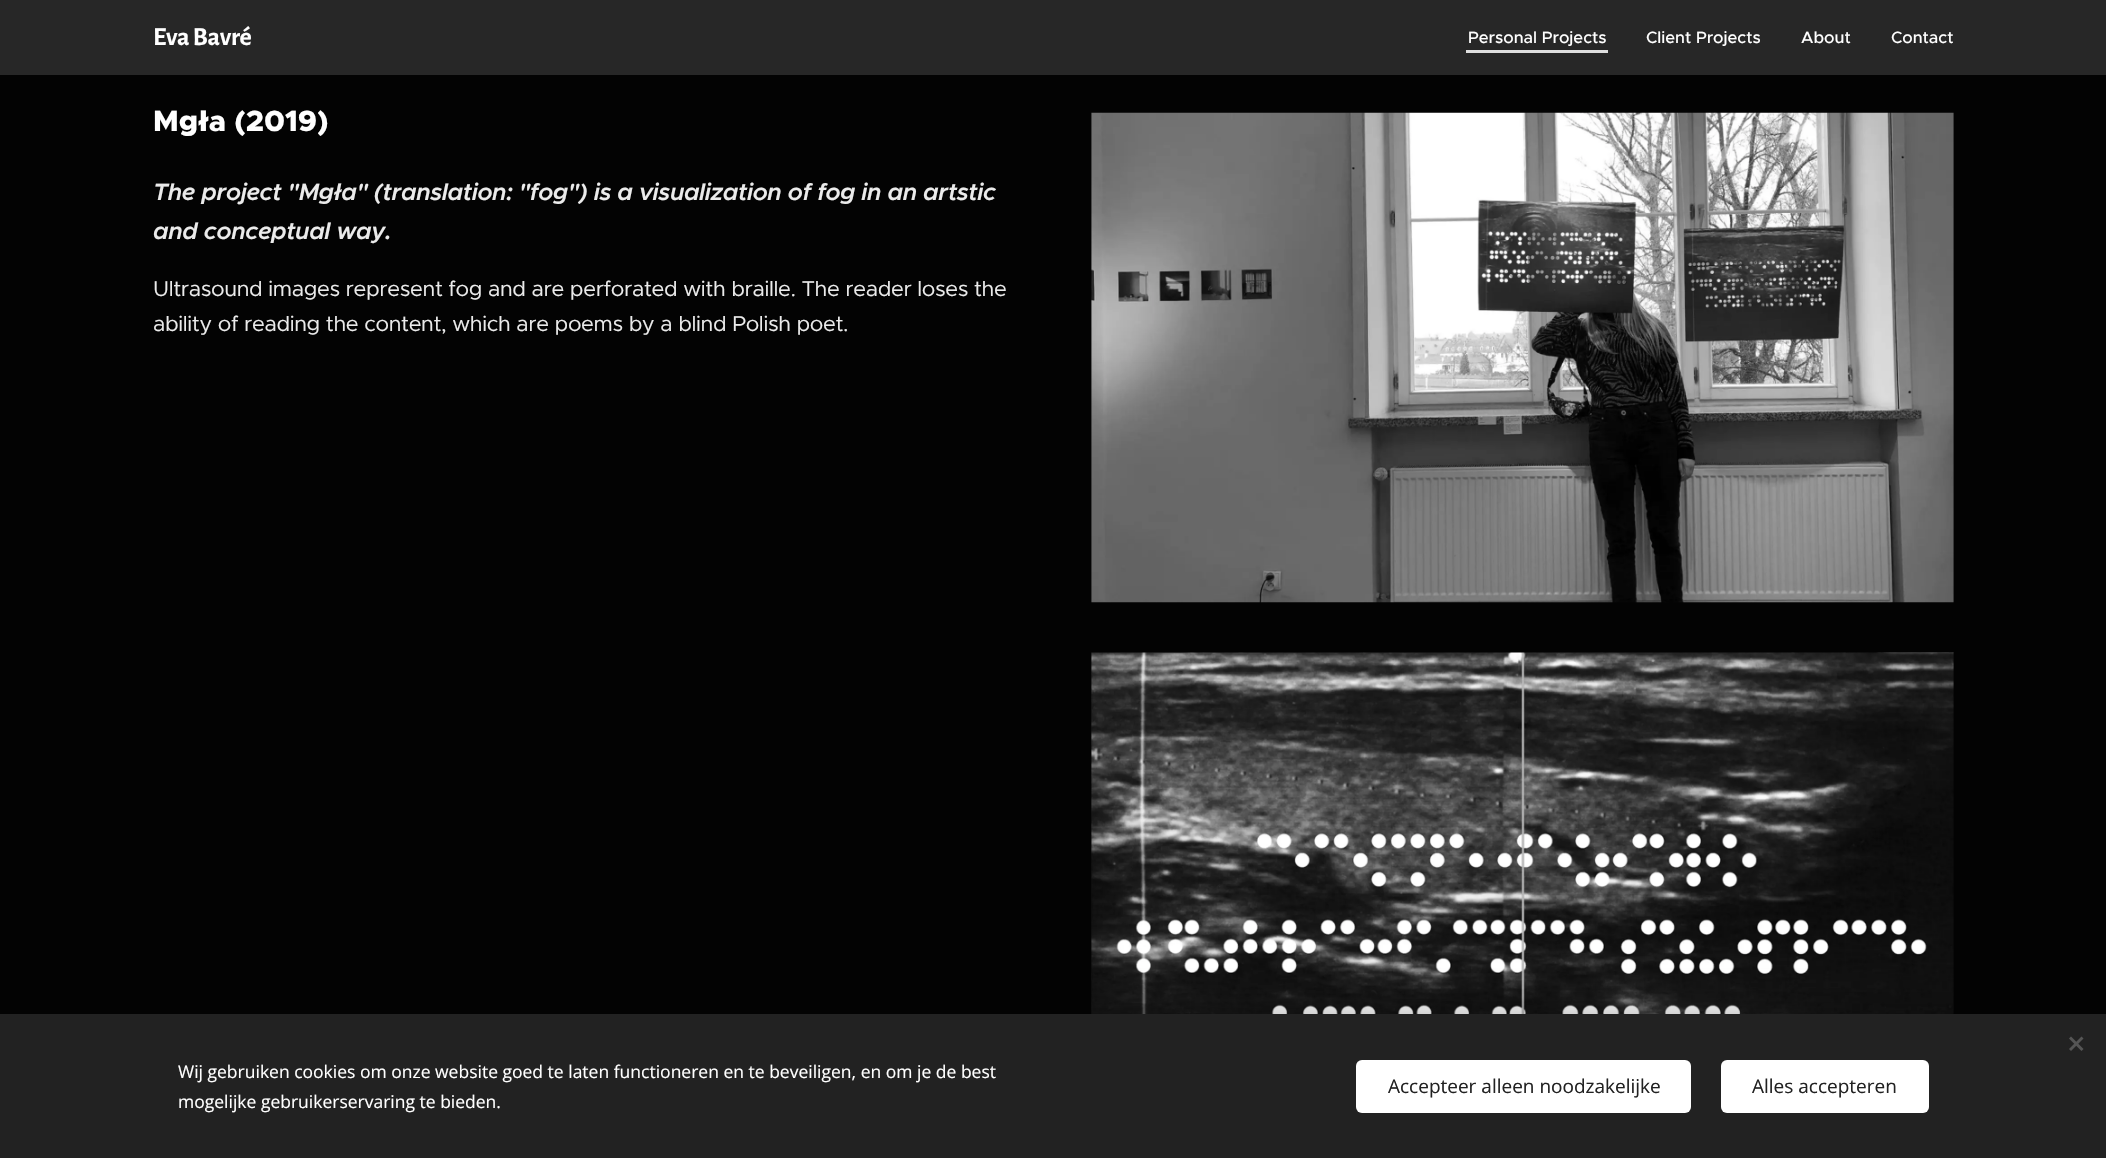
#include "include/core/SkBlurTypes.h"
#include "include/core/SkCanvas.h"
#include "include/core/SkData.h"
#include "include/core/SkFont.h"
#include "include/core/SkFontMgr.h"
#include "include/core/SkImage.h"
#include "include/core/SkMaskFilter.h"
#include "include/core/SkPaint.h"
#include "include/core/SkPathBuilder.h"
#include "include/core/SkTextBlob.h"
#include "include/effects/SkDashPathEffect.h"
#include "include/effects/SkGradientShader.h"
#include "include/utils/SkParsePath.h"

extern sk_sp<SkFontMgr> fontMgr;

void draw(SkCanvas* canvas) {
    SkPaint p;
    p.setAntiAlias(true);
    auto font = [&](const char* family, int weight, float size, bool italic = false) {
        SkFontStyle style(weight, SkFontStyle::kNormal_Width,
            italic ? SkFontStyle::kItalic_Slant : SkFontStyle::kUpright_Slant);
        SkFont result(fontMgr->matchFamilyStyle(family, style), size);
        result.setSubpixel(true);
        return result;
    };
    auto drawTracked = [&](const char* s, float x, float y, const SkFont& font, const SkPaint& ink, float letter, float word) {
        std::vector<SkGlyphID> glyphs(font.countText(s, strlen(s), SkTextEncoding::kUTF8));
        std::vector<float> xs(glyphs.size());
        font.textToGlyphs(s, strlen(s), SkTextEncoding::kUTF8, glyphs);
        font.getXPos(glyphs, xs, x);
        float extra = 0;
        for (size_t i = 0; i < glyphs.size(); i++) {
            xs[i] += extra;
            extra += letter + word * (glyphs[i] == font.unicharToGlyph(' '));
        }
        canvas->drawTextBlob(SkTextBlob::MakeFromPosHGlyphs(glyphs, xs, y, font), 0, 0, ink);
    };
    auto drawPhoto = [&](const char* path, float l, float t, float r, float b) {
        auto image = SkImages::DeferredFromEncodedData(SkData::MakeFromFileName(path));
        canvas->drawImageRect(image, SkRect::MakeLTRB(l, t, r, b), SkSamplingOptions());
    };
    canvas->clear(0xFF030303);
    p.setColor(0xFF272727);
    canvas->drawRect(SkRect::MakeLTRB(0, 0, 2106, 75), p);
    auto font1 = font("Alegreya Sans", 700, 26);
    p.setColor(0xFFFFFFFF);
    drawTracked("Eva Bavré", 153, 45, font1, p, -0.35f, 0);
    auto font2 = font("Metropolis", 500, 16.5f);
    canvas->drawString("Personal Projects", 1468, 43, font2, p);
    p.setColor(0xFFDFDFDF);
    canvas->drawRect(SkRect::MakeLTRB(1466, 50, 1608, 53), p);
    p.setColor(0xFFFFFFFF);
    {
        const struct { const char* s; float x, y; } items[] = {
            {"Client Projects", 1646, 43},
            {"About", 1801, 43},
            {"Contact", 1891, 43},
        };
        for (auto [s, x, y] : items) {
            canvas->drawString(s, x, y, font2, p);
        }
    }
    auto font3 = font("Metropolis", 800, 29.5f);
    canvas->drawString("Mgła (2019)", 153, 131, font3, p);
    auto font4 = font("Metropolis", 600, 23.75f, true);
    p.setColor(0xFFEBEBEB);
    drawTracked("The project \"Mgła\" (translation: \"fog\") is a visualization of fog in an artstic", 153, 200, font4, p, -0.35f, 0);
    drawTracked("and conceptual way.", 153, 239, font4, p, -0.35f, 0);
    auto font5 = font("Metropolis", 400, 21.5f);
    drawTracked("Ultrasound images represent fog and are perforated with braille. The reader loses the", 153, 296, font5, p, -0.35f, 0);
    drawTracked("ability of reading the content, which are poems by a blind Polish poet.", 153, 331, font5, p, -0.35f, 0);
    drawPhoto("media/1.png", 1091, 112, 1954, 603);
    drawPhoto("media/2.png", 1091, 652, 1954, 1014);
    p.setColor(0x54000000);
    p.setMaskFilter(SkMaskFilter::MakeBlur(kNormal_SkBlurStyle, 15.5f));
    canvas->drawRect(SkRect::MakeLTRB(0, 1014, 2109, 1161), p);
    p.setMaskFilter(nullptr);
    p.setColor(0xFF222222);
    canvas->drawRect(SkRect::MakeLTRB(0, 1014, 2106, 1158), p);
    p.setColor(0xFF555555);
    canvas->drawPath(SkPathBuilder().moveTo(2069, 1049).lineTo(2081.5f, 1036.5f).lineTo(2083.5f, 1038.5f).lineTo(2071, 1051).close().detach(), p);
    canvas->drawPath(SkPathBuilder().moveTo(2071, 1036.5f).lineTo(2083.5f, 1049).lineTo(2081.5f, 1051).lineTo(2069, 1038.5f).close().detach(), p);
    auto font6 = font("Open Sans", 400, 17.5f);
    p.setColor(0xFFFFFFFF);
    canvas->drawString("Wij gebruiken cookies om onze website goed te laten functioneren en te beveiligen, en om je de best", 178, 1078, font6, p);
    canvas->drawString("mogelijke gebruikerservaring te bieden.", 178, 1108, font6, p);
    canvas->drawRoundRect(SkRect::MakeLTRB(1356, 1060, 1691, 1113), 6, 6, p);
    auto font7 = font("Open Sans", 400, 19);
    p.setColor(0xFF222222);
    canvas->drawString("Accepteer alleen noodzakelijke", 1388, 1093, font7, p);
    p.setColor(0xFFFFFFFF);
    canvas->drawRoundRect(SkRect::MakeLTRB(1721, 1060, 1929, 1113), 6, 6, p);
    p.setColor(0xFF222222);
    canvas->drawString("Alles accepteren", 1752, 1093, font7, p);
}
